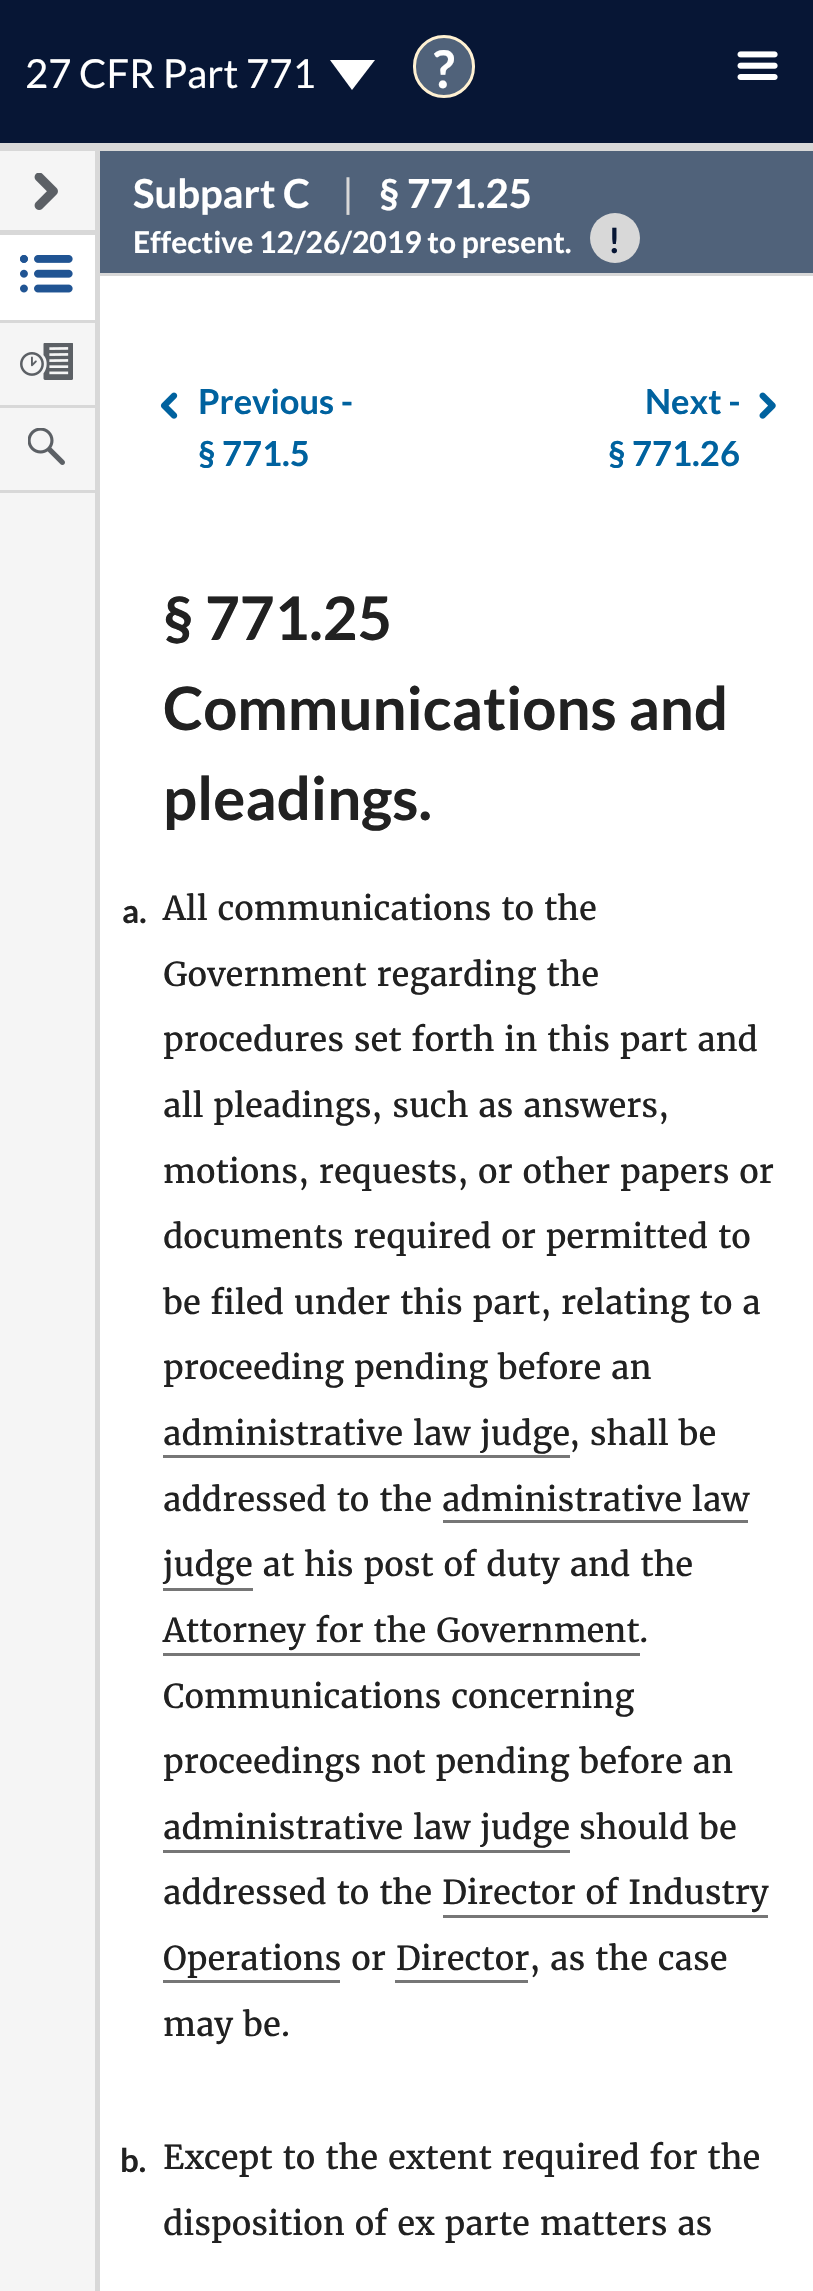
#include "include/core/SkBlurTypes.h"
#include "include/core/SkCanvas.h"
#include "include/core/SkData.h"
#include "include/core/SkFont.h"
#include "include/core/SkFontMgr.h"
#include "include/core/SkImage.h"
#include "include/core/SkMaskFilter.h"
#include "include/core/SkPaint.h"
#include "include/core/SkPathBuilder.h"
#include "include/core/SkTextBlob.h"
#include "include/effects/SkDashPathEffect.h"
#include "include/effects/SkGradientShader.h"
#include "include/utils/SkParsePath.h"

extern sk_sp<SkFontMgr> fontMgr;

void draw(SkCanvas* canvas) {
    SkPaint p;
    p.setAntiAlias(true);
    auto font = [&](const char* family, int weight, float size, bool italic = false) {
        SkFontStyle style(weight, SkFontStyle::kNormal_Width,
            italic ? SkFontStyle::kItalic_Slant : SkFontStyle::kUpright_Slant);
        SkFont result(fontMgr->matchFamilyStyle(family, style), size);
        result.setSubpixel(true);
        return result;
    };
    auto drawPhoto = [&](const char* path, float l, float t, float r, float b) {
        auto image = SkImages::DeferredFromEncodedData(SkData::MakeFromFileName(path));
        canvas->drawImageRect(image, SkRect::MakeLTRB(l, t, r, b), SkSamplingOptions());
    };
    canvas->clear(0xFFFFFFFF);
    {
        const struct { float l, t, r, b; SkColor color; } items[] = {
            {0, 0, 813, 143, 0xFF071635},
            {95, 150, 100, 2291, 0xFFD8D8D8},
            {0, 143, 813, 151, 0xFFD8D8D8},
        };
        for (auto [l, t, r, b, color] : items) {
            p.setColor(color);
            canvas->drawRect(SkRect::MakeLTRB(l, t, r, b), p);
        }
    }
    auto font1 = font("Lato", 400, 40);
    p.setColor(0xFFFFFFFF);
    canvas->drawString("27 CFR Part 771", 25, 88, font1, p);
    canvas->drawPath(SkPathBuilder().moveTo(330, 60).lineTo(375, 60).lineTo(352, 90).close().detach(), p);
    p.setColor(0xFF50627A);
    canvas->drawRoundRect(SkRect::MakeLTRB(414.5f, 36.5f, 473.5f, 96.5f), 29.5f, 29.5f, p);
    p.setStyle(SkPaint::kStroke_Style);
    p.setStrokeWidth(3);
    p.setColor(0xFFFFF1D2);
    canvas->drawRoundRect(SkRect::MakeLTRB(414.5f, 36.5f, 473.5f, 96.5f), 29.5f, 29.5f, p);
    auto font2 = font("Lato", 700, 52);
    p.setStyle(SkPaint::kFill_Style);
    p.setColor(0xFFFFFFFF);
    canvas->drawString("?", 433, 88, font2, p);
    drawPhoto("media/1.png", 737, 51, 778, 80);
    {
        const struct { float l, t, r, b; SkColor color; } items[] = {
            {100, 151, 813, 273, 0xFF50627A},
            {100, 273, 813, 276, 0xFFD8D8D8},
            {0, 151, 95, 490, 0xFFF5F5F5},
            {0, 230, 95, 235, 0xFFD8D8D8},
        };
        for (auto [l, t, r, b, color] : items) {
            p.setColor(color);
            canvas->drawRect(SkRect::MakeLTRB(l, t, r, b), p);
        }
    }
    drawPhoto("media/2.png", 34, 173, 58, 210);
    canvas->drawRect(SkRect::MakeLTRB(0, 320, 95, 323), p);
    p.setColor(0xFFFFFFFF);
    canvas->drawRect(SkRect::MakeLTRB(0, 235, 95, 320), p);
    drawPhoto("media/3.png", 20, 255, 73, 293);
    p.setColor(0xFFD8D8D8);
    canvas->drawRect(SkRect::MakeLTRB(0, 405, 95, 408), p);
    drawPhoto("media/4.png", 20, 343, 73, 380);
    canvas->drawRect(SkRect::MakeLTRB(0, 490, 95, 493), p);
    drawPhoto("media/5.png", 28, 428, 65, 465);
    auto font3 = font("Lato", 700, 40);
    p.setColor(0xFFFFFFFF);
    canvas->drawString("Subpart C", 133, 208, font3, p);
    p.setColor(0xFFD8D8D8);
    canvas->drawString("|", 342, 208, font1, p);
    p.setColor(0xFFFFFFFF);
    canvas->drawString("§ 771.25", 379, 208, font3, p);
    auto font4 = font("Lato", 700, 30);
    canvas->drawString("Effective 12/26/2019 to present.", 133, 253, font4, p);
    p.setColor(0xFFD8D8D8);
    canvas->drawCircle(615, 238, 25, p);
    auto font5 = font("Lato", 700, 35);
    p.setColor(0xFF071635);
    canvas->drawString("!", 608, 253, font5, p);
    p.setColor(0xFFF5F5F5);
    canvas->drawRect(SkRect::MakeLTRB(0, 493, 95, 2291), p);
    drawPhoto("media/6.png", 160, 392, 178, 419);
    auto font6 = font("Lato", 700, 34.5f);
    p.setColor(0xFF00629F);
    {
        const struct { const char* s; float x, y; } items[] = {
            {"Previous -", 198, 414},
            {"§ 771.5", 198, 466},
            {"Next -", 645, 414},
        };
        for (auto [s, x, y] : items) {
            canvas->drawString(s, x, y, font6, p);
        }
    }
    drawPhoto("media/7.png", 759, 392, 776, 419);
    canvas->drawString("§ 771.26", 608, 466, font6, p);
    auto font7 = font("Lato", 700, 60);
    p.setColor(0xFF212121);
    {
        const struct { const char* s; float x, y; } items[] = {
            {"§ 771.25", 163, 640},
            {"Communications and", 163, 730},
            {"pleadings.", 163, 820},
        };
        for (auto [s, x, y] : items) {
            canvas->drawString(s, x, y, font7, p);
        }
    }
    auto font8 = font("Lato", 700, 32.8f);
    canvas->drawString("a.", 122, 923, font8, p);
    auto font9 = font("Merriweather", 400, 32.8f);
    {
        const struct { const char* s; float x, y; } items[] = {
            {"All communications to the", 163, 920},
            {"Government regarding the", 163, 986},
            {"procedures set forth in this part and", 163, 1051},
            {"all pleadings, such as answers,", 163, 1117},
            {"motions, requests, or other papers or", 163, 1183},
            {"documents required or permitted to", 163, 1248},
            {"be filed under this part, relating to a", 163, 1314},
            {"proceeding pending before an", 163, 1379},
            {"administrative law judge", 163, 1445},
        };
        for (auto [s, x, y] : items) {
            canvas->drawString(s, x, y, font9, p);
        }
    }
    p.setColor(0xFF767676);
    canvas->drawRect(SkRect::MakeLTRB(163, 1455, 570, 1458), p);
    p.setColor(0xFF212121);
    {
        const struct { const char* s; float x, y; } items[] = {
            {", shall be", 569, 1445},
            {"addressed to the administrative law", 163, 1511},
            {"judge at his post of duty and the", 163, 1576},
        };
        for (auto [s, x, y] : items) {
            canvas->drawString(s, x, y, font9, p);
        }
    }
    p.setColor(0xFF767676);
    canvas->drawRect(SkRect::MakeLTRB(443, 1520, 748, 1523), p);
    canvas->drawRect(SkRect::MakeLTRB(163, 1588, 253, 1591), p);
    p.setColor(0xFF212121);
    canvas->drawString("Attorney for the Government", 163, 1642, font9, p);
    p.setColor(0xFF767676);
    canvas->drawRect(SkRect::MakeLTRB(163, 1653, 640, 1656), p);
    p.setColor(0xFF212121);
    {
        const struct { const char* s; float x, y; } items[] = {
            {".", 639, 1642},
            {"Communications concerning", 163, 1708},
            {"proceedings not pending before an", 163, 1773},
            {"administrative law judge", 163, 1839},
        };
        for (auto [s, x, y] : items) {
            canvas->drawString(s, x, y, font9, p);
        }
    }
    p.setColor(0xFF767676);
    canvas->drawRect(SkRect::MakeLTRB(163, 1850, 570, 1853), p);
    p.setColor(0xFF212121);
    {
        const struct { const char* s; float x, y; } items[] = {
            {"should be", 579, 1839},
            {"addressed to the Director of Industry", 163, 1904},
            {"Operations or Director, as the case", 163, 1970},
        };
        for (auto [s, x, y] : items) {
            canvas->drawString(s, x, y, font9, p);
        }
    }
    {
        const struct { float l, t, r, b; SkColor color; } items[] = {
            {443, 1915, 768, 1918, 0xFF767676},
            {163, 1980, 340, 1983, 0xFF767676},
            {395, 1980, 528, 1983, 0xFF767676},
        };
        for (auto [l, t, r, b, color] : items) {
            p.setColor(color);
            canvas->drawRect(SkRect::MakeLTRB(l, t, r, b), p);
        }
    }
    p.setColor(0xFF212121);
    canvas->drawString("may be.", 163, 2036, font9, p);
    canvas->drawString("b.", 120, 2172, font8, p);
    canvas->drawString("Except to the extent required for the", 163, 2169, font9, p);
    canvas->drawString("disposition of ex parte matters as", 163, 2235, font9, p);
}
